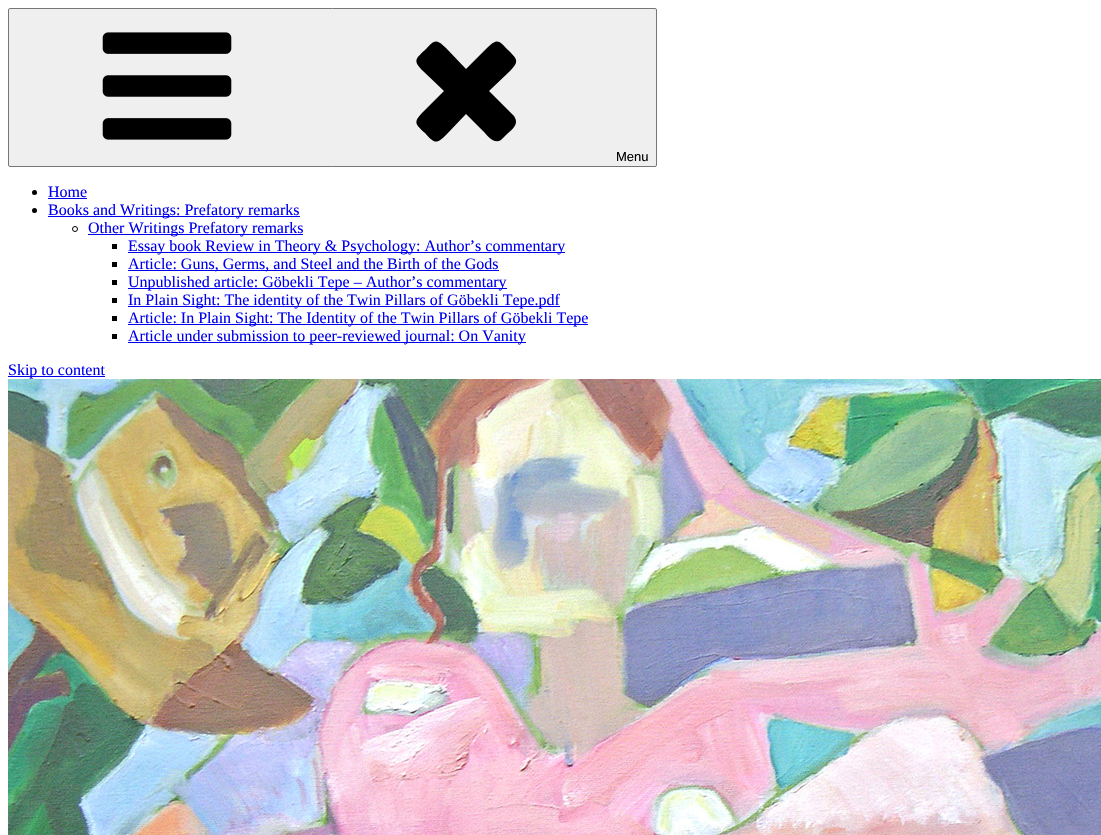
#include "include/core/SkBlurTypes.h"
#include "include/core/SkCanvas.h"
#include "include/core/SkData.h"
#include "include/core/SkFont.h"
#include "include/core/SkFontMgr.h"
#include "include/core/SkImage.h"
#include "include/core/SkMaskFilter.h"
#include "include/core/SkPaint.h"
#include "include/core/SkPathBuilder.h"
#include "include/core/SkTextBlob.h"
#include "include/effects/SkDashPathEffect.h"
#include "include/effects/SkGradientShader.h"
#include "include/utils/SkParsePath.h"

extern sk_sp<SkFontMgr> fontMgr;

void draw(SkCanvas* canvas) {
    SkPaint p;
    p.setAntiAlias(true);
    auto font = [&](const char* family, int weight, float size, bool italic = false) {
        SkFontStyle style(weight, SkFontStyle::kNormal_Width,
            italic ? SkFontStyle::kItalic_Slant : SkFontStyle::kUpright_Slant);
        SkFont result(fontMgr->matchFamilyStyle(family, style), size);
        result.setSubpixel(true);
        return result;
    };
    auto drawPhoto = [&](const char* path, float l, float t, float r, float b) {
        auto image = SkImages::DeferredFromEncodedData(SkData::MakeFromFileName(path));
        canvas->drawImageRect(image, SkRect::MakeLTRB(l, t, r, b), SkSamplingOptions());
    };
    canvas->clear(0xFFFFFFFF);
    p.setColor(0xFFEFEFEF);
    canvas->drawRoundRect(SkRect::MakeLTRB(8.5f, 8.5f, 656.5f, 166.5f), 1.5f, 1.5f, p);
    p.setStyle(SkPaint::kStroke_Style);
    p.setStrokeWidth(1);
    p.setColor(0xFF767676);
    canvas->drawRoundRect(SkRect::MakeLTRB(8.5f, 8.5f, 656.5f, 166.5f), 1.5f, 1.5f, p);
    drawPhoto("media/1.png", 102, 32, 232, 140);
    p.setStyle(SkPaint::kFill_Style);
    p.setColor(0xFF000000);
    canvas->drawPath(SkPathBuilder().moveTo(516, 122).cubicTo(516, 127, 510, 131, 506, 135).lineTo(501, 140).cubicTo(494, 145, 487, 135, 483, 131).lineTo(466, 114).lineTo(446, 135).cubicTo(436, 145, 434, 143, 425, 133).cubicTo(415, 124, 413, 122, 423, 112).lineTo(444, 91).lineTo(423, 71).cubicTo(413, 61, 415, 59, 425, 50).cubicTo(434, 40, 436, 38, 446, 48).lineTo(466, 69).lineTo(487, 48).cubicTo(497, 38, 499, 40, 508, 50).cubicTo(517, 59, 520, 61, 510, 71).lineTo(489, 91).lineTo(514, 116).cubicTo(515, 118, 516, 119, 516, 122).close().detach(), p);
    auto font1 = font("Liberation Sans", 400, 13);
    canvas->drawString("Menu", 616, 161, font1, p);
    canvas->drawCircle(34.5f, 192.5f, 2.5f, p);
    auto font2 = font("Liberation Serif", 400, 16);
    p.setColor(0xFF0000EE);
    canvas->drawString("Home", 48, 197, font2, p);
    canvas->drawRect(SkRect::MakeLTRB(48, 198, 87, 199), p);
    p.setColor(0xFF000000);
    canvas->drawCircle(34.5f, 210.5f, 2.5f, p);
    p.setColor(0xFF0000EE);
    canvas->drawRect(SkRect::MakeLTRB(48, 216, 300, 217), p);
    canvas->drawString("Books and Writings: Prefatory remarks", 48, 215, font2, p);
    p.setStyle(SkPaint::kStroke_Style);
    p.setColor(0xFF000000);
    canvas->drawCircle(75, 229, 2.5f, p);
    p.setStyle(SkPaint::kFill_Style);
    p.setColor(0xFF0000EE);
    canvas->drawRect(SkRect::MakeLTRB(88, 234, 303, 235), p);
    canvas->drawString("Other Writings Prefatory remarks", 88, 233, font2, p);
    p.setColor(0xFF000000);
    canvas->drawRect(SkRect::MakeLTRB(112, 244, 117, 249), p);
    p.setColor(0xFF0000EE);
    canvas->drawRect(SkRect::MakeLTRB(128, 252, 565, 253), p);
    canvas->drawString("Essay book Review in Theory & Psychology: Author’s commentary", 128, 251, font2, p);
    p.setColor(0xFF000000);
    canvas->drawRect(SkRect::MakeLTRB(112, 262, 117, 267), p);
    p.setColor(0xFF0000EE);
    canvas->drawRect(SkRect::MakeLTRB(128, 270, 499, 271), p);
    canvas->drawString("Article: Guns, Germs, and Steel and the Birth of the Gods", 128, 269, font2, p);
    p.setColor(0xFF000000);
    canvas->drawRect(SkRect::MakeLTRB(112, 280, 117, 285), p);
    p.setColor(0xFF0000EE);
    canvas->drawRect(SkRect::MakeLTRB(128, 288, 507, 289), p);
    canvas->drawString("Unpublished article: Göbekli Tepe – Author’s commentary", 128, 287, font2, p);
    p.setColor(0xFF000000);
    canvas->drawRect(SkRect::MakeLTRB(112, 298, 117, 303), p);
    p.setColor(0xFF0000EE);
    canvas->drawRect(SkRect::MakeLTRB(128, 306, 560, 307), p);
    canvas->drawString("In Plain Sight: The identity of the Twin Pillars of Göbekli Tepe.pdf", 128, 305, font2, p);
    p.setColor(0xFF000000);
    canvas->drawRect(SkRect::MakeLTRB(112, 316, 117, 321), p);
    p.setColor(0xFF0000EE);
    canvas->drawRect(SkRect::MakeLTRB(128, 324, 588, 325), p);
    canvas->drawString("Article: In Plain Sight: The Identity of the Twin Pillars of Göbekli Tepe", 128, 323, font2, p);
    p.setColor(0xFF000000);
    canvas->drawRect(SkRect::MakeLTRB(112, 334, 117, 339), p);
    p.setColor(0xFF0000EE);
    canvas->drawRect(SkRect::MakeLTRB(128, 342, 526, 343), p);
    canvas->drawString("Article under submission to peer-reviewed journal: On Vanity", 128, 341, font2, p);
    canvas->drawRect(SkRect::MakeLTRB(8, 376, 105, 377), p);
    canvas->drawString("Skip to content", 8, 375, font2, p);
    drawPhoto("media/2.png", 8, 379, 1101, 835);
}
